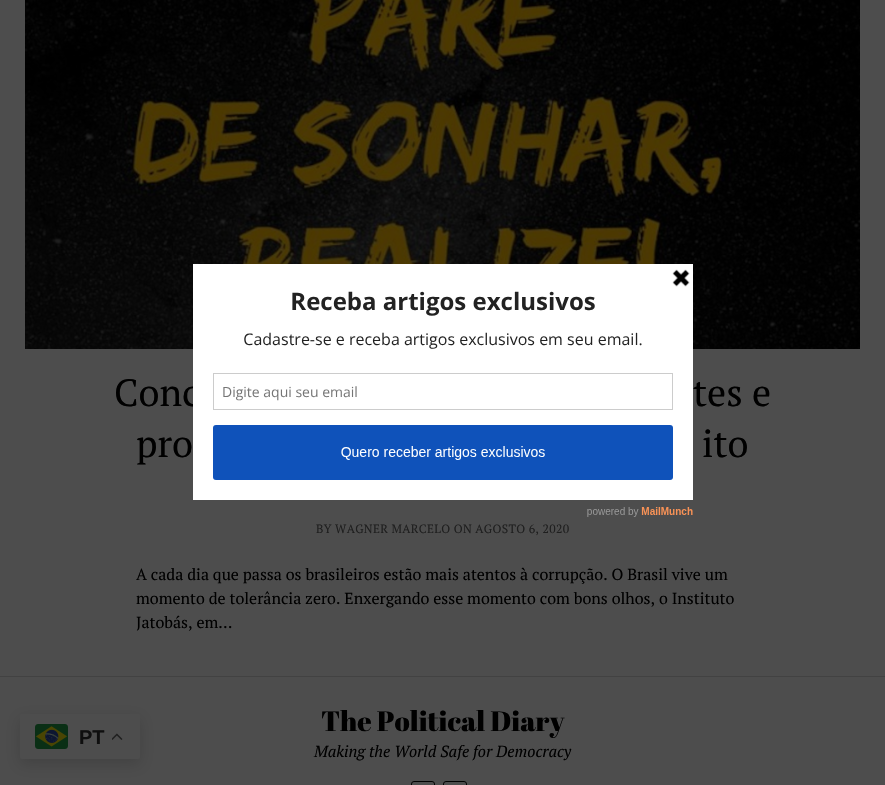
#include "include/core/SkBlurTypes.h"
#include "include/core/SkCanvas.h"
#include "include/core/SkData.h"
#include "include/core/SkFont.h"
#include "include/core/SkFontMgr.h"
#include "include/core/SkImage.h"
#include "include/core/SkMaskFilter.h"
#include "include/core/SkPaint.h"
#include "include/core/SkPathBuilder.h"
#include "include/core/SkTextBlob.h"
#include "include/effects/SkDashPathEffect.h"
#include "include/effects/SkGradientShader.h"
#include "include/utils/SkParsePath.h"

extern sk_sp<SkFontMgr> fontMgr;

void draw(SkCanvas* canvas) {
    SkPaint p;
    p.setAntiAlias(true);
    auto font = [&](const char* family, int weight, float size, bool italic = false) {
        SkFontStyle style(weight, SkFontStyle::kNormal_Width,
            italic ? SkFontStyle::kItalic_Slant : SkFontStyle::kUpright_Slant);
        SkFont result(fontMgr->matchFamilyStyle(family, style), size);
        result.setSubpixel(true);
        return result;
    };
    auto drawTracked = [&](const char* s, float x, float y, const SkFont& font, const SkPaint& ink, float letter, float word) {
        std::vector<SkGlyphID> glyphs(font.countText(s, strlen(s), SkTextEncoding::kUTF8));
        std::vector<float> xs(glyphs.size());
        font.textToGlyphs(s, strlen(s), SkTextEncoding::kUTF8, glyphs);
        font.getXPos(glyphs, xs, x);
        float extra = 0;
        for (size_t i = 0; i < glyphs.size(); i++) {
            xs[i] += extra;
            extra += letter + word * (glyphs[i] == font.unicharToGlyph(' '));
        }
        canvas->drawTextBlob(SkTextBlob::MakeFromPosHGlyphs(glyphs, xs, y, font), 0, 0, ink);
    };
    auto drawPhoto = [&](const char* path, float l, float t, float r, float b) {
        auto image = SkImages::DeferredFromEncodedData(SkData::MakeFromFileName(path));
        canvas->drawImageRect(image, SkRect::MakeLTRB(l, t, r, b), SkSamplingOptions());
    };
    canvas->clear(0xFF4D4D4D);
    drawPhoto("media/4.png", 25, 0, 860, 349);
    auto font1 = font("PT Serif", 400, 38);
    p.setColor(0xFF000000);
    canvas->drawString("Conc", 114, 406, font1, p);
    drawPhoto("media/1.png", 193, 264, 693, 517);
    p.setColor(0x26000000);
    p.setMaskFilter(SkMaskFilter::MakeBlur(kNormal_SkBlurStyle, 7.5f));
    canvas->drawRoundRect(SkRect::MakeLTRB(20, 719, 140, 764), 2, 2, p);
    p.setMaskFilter(nullptr);
    p.setColor(0xFF4D4D4D);
    canvas->drawRoundRect(SkRect::MakeLTRB(20, 714, 140, 759), 2, 2, p);
    drawPhoto("media/2.png", 35, 724, 68, 749);
    auto font2 = font("Liberation Sans", 700, 20);
    p.setColor(0xFF0F0F0F);
    canvas->drawString("PT", 79, 744, font2, p);
    drawPhoto("media/3.png", 112, 733, 123, 740);
    p.setColor(0xFF000000);
    {
        const struct { const char* s; float x, y; } items[] = {
            {"tes e", 693, 406},
            {"pro", 136, 457},
            {"ito", 702, 457},
        };
        for (auto [s, x, y] : items) {
            canvas->drawString(s, x, y, font1, p);
        }
    }
    auto font3 = font("PT Serif", 400, 12);
    p.setColor(0xFF1F1F1F);
    drawTracked("BY WAGNER MARCELO ON AGOSTO 6, 2020", 316, 533, font3, p, 0.35f, 0);
    auto font4 = font("PT Serif", 400, 16);
    p.setColor(0xFF000000);
    {
        const struct { const char* s; float x, y; } items[] = {
            {"A cada dia que passa os brasileiros estão mais atentos à corrupção. O Brasil vive um", 136, 580},
            {"momento de tolerância zero. Enxergando esse momento com bons olhos, o Instituto", 136, 604},
            {"Jatobás, em…", 136, 628},
        };
        for (auto [s, x, y] : items) {
            canvas->drawString(s, x, y, font4, p);
        }
    }
    p.setColor(0xFF424242);
    canvas->drawRect(SkRect::MakeLTRB(0, 676, 885, 677), p);
    auto font5 = font("Abril Fatface", 400, 28);
    p.setColor(0xFF000000);
    canvas->drawString("The Political Diary", 321, 731, font5, p);
    auto font6 = font("PT Serif", 400, 16, true);
    canvas->drawString("Making the World Safe for Democracy", 314, 757, font6, p);
    p.setStyle(SkPaint::kStroke_Style);
    p.setStrokeWidth(1);
    canvas->drawRoundRect(SkRect::MakeLTRB(411.5f, 781.5f, 434.5f, 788.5f), 2.5f, 2.5f, p);
    canvas->drawRoundRect(SkRect::MakeLTRB(443.5f, 781.5f, 466.5f, 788.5f), 2.5f, 2.5f, p);
}
